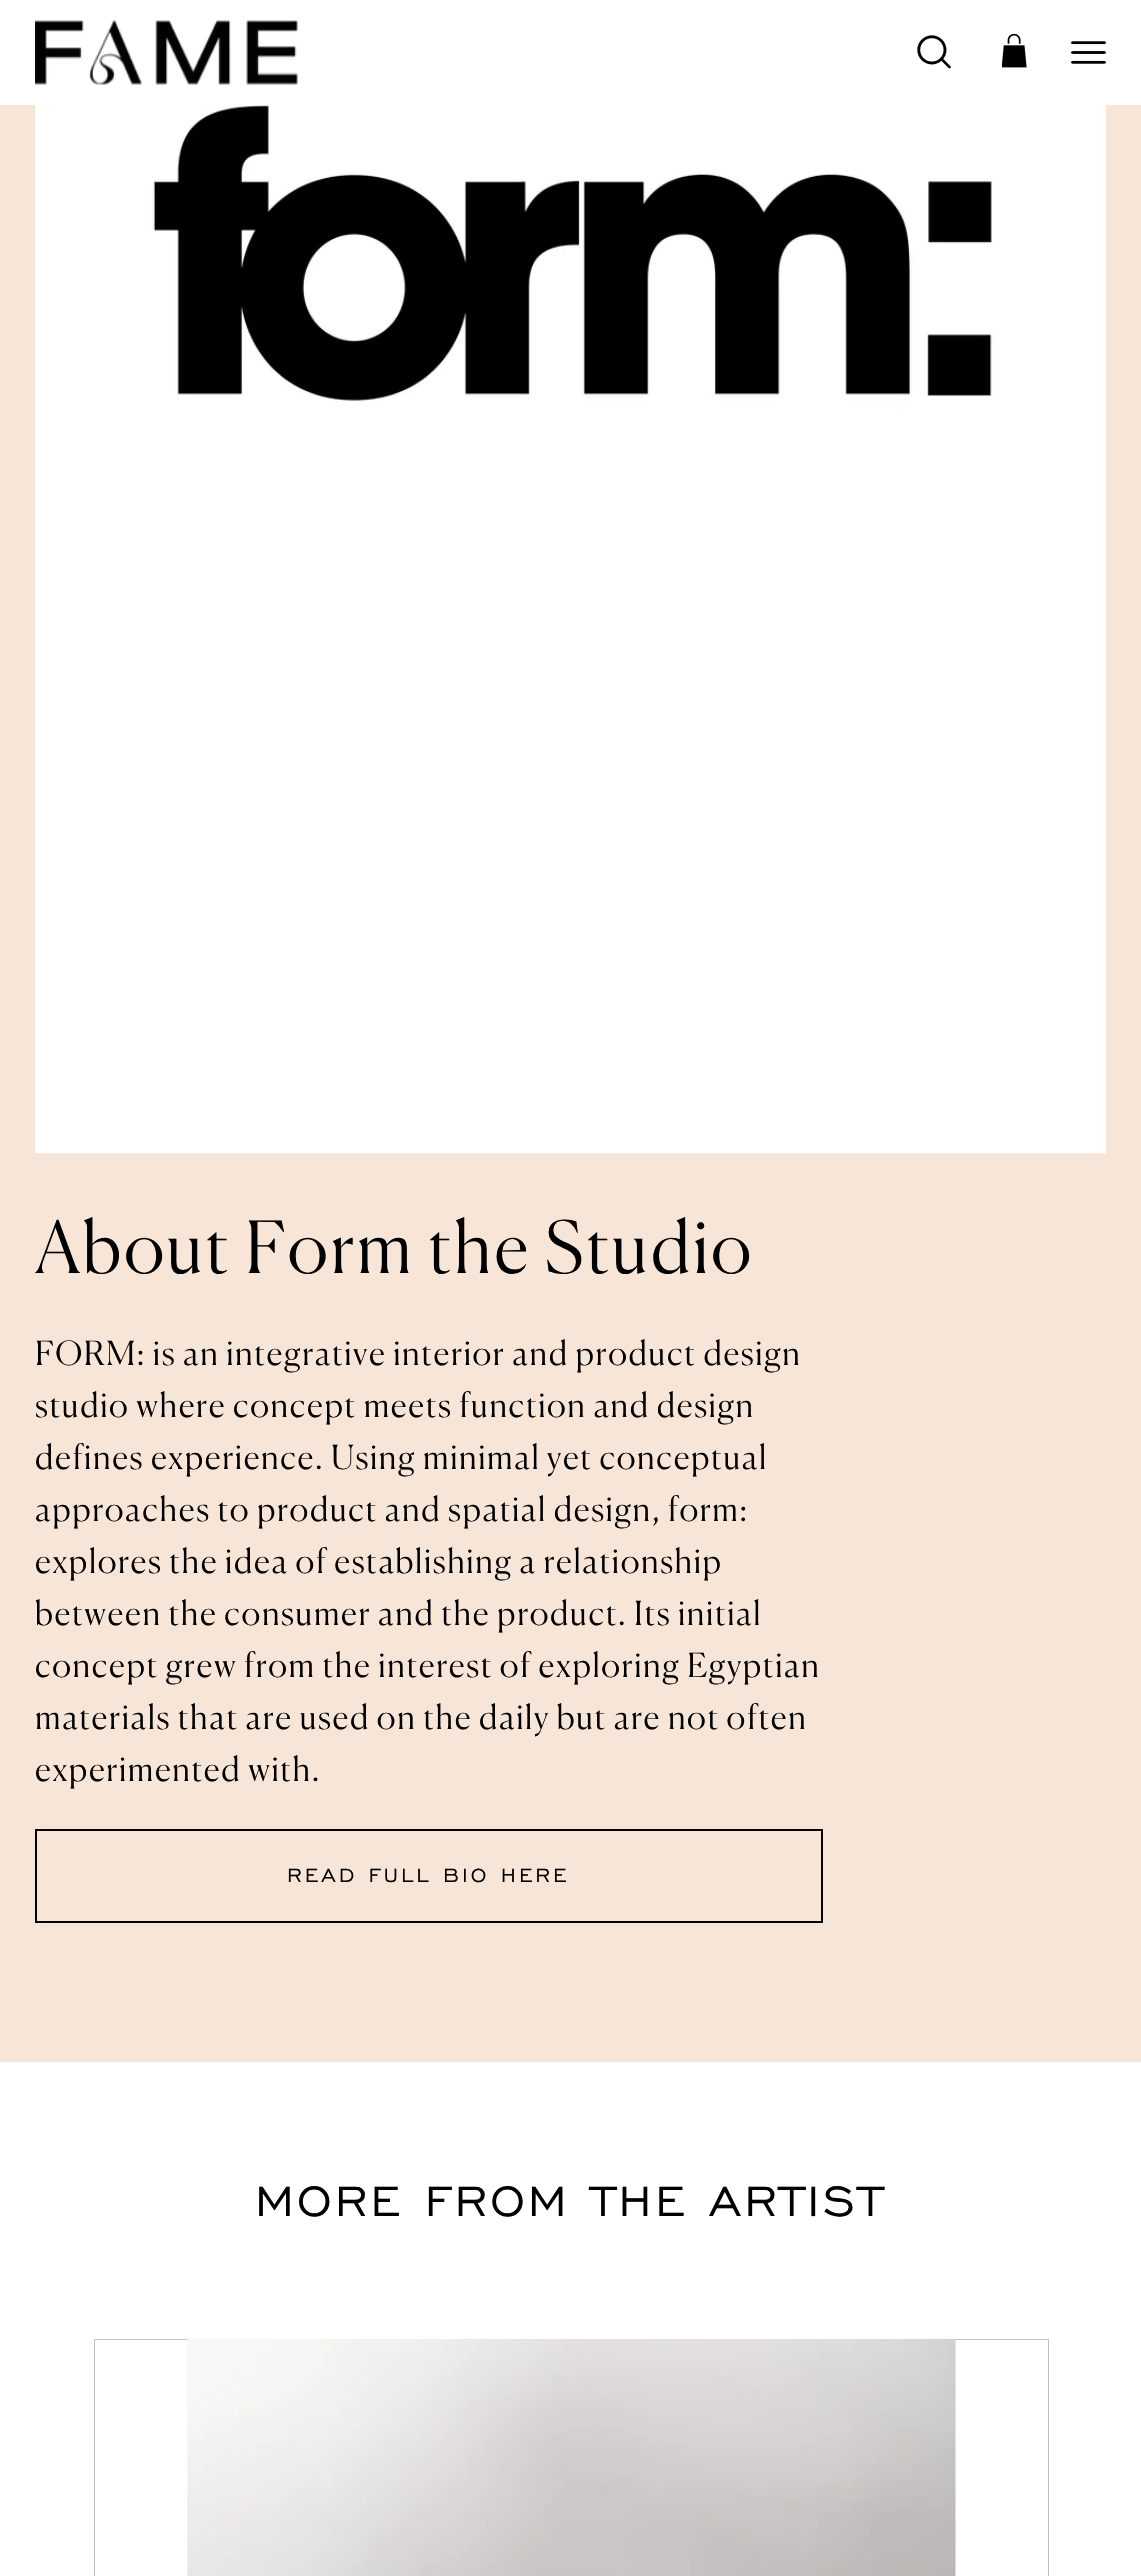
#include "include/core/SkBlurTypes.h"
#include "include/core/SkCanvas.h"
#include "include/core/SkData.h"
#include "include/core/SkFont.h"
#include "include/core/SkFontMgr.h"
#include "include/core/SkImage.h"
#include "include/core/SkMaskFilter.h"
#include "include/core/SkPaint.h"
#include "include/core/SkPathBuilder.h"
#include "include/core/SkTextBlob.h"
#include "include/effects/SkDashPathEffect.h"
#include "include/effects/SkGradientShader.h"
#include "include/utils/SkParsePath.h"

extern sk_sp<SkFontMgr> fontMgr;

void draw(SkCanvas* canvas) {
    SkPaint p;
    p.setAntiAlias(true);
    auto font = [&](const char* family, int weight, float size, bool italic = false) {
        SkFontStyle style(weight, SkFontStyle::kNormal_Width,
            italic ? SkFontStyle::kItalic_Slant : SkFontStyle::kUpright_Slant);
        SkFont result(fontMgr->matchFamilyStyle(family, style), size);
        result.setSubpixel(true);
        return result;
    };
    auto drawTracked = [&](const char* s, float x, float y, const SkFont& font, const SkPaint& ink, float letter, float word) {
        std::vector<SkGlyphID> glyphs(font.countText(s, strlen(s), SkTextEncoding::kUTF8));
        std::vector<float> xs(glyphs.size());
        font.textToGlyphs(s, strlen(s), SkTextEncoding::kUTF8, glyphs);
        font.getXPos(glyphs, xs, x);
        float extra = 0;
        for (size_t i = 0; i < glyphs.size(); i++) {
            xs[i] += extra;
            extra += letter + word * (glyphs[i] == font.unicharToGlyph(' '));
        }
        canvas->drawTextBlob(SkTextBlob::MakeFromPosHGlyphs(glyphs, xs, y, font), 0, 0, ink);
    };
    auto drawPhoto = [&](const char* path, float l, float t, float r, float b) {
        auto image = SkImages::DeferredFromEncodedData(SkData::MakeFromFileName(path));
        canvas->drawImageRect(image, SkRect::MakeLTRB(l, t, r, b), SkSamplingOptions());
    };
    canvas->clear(0xFFFFFFFF);
    drawPhoto("media/1.png", 35, 20, 298, 85);
    drawPhoto("media/2.png", 917, 35, 951, 69);
    drawPhoto("media/3.png", 1002, 33, 1027, 68);
    drawPhoto("media/4.png", 1071, 41, 1106, 64);
    p.setColor(0xFFF7E5D8);
    canvas->drawRect(SkRect::MakeLTRB(0, 105, 1141, 2062), p);
    drawPhoto("media/5.png", 35, 105, 1106, 1154);
    auto font1 = font("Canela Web", 300, 71.75f);
    p.setColor(0xFF000000);
    drawTracked("About Form the Studio", 35, 1273, font1, p, 2.5f, 0);
    auto font2 = font("Canela Web", 300, 33.25f);
    {
        const struct { const char* s; float x, y; } items[] = {
            {"FORM: is an integrative interior and product design", 35, 1365},
            {"studio where concept meets function and design", 35, 1417},
            {"defines experience. Using minimal yet conceptual", 35, 1469},
            {"approaches to product and spatial design, form:", 35, 1521},
            {"explores the idea of establishing a relationship", 35, 1573},
            {"between the consumer and the product. Its initial", 35, 1625},
            {"concept grew from the interest of exploring Egyptian", 35, 1677},
            {"materials that are used on the daily but are not often", 35, 1729},
            {"experimented with.", 35, 1781},
        };
        for (auto [s, x, y] : items) {
            drawTracked(s, x, y, font2, p, 1.6f, 0);
        }
    }
    p.setStyle(SkPaint::kStroke_Style);
    p.setStrokeWidth(2);
    canvas->drawRect(SkRect::MakeLTRB(36, 1830, 822, 1922), p);
    auto font3 = font("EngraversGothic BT", 400, 24.5f);
    p.setStyle(SkPaint::kFill_Style);
    drawTracked("READ FULL BIO HERE", 287, 1882, font3, p, 3.1f, 0);
    auto font4 = font("EngraversGothic BT", 400, 54.25f);
    drawTracked("MORE FROM THE ARTIST", 255, 2216, font4, p, 3.25f, 0);
    p.setColor(0xFFC1C4BE);
    canvas->drawRect(SkRect::MakeLTRB(94, 2339, 1049, 2576), p);
    p.setColor(0xFFFFFFFF);
    canvas->drawRect(SkRect::MakeLTRB(95, 2340, 1048, 2576), p);
    drawPhoto("media/6.png", 187, 2339, 956, 2576);
}
